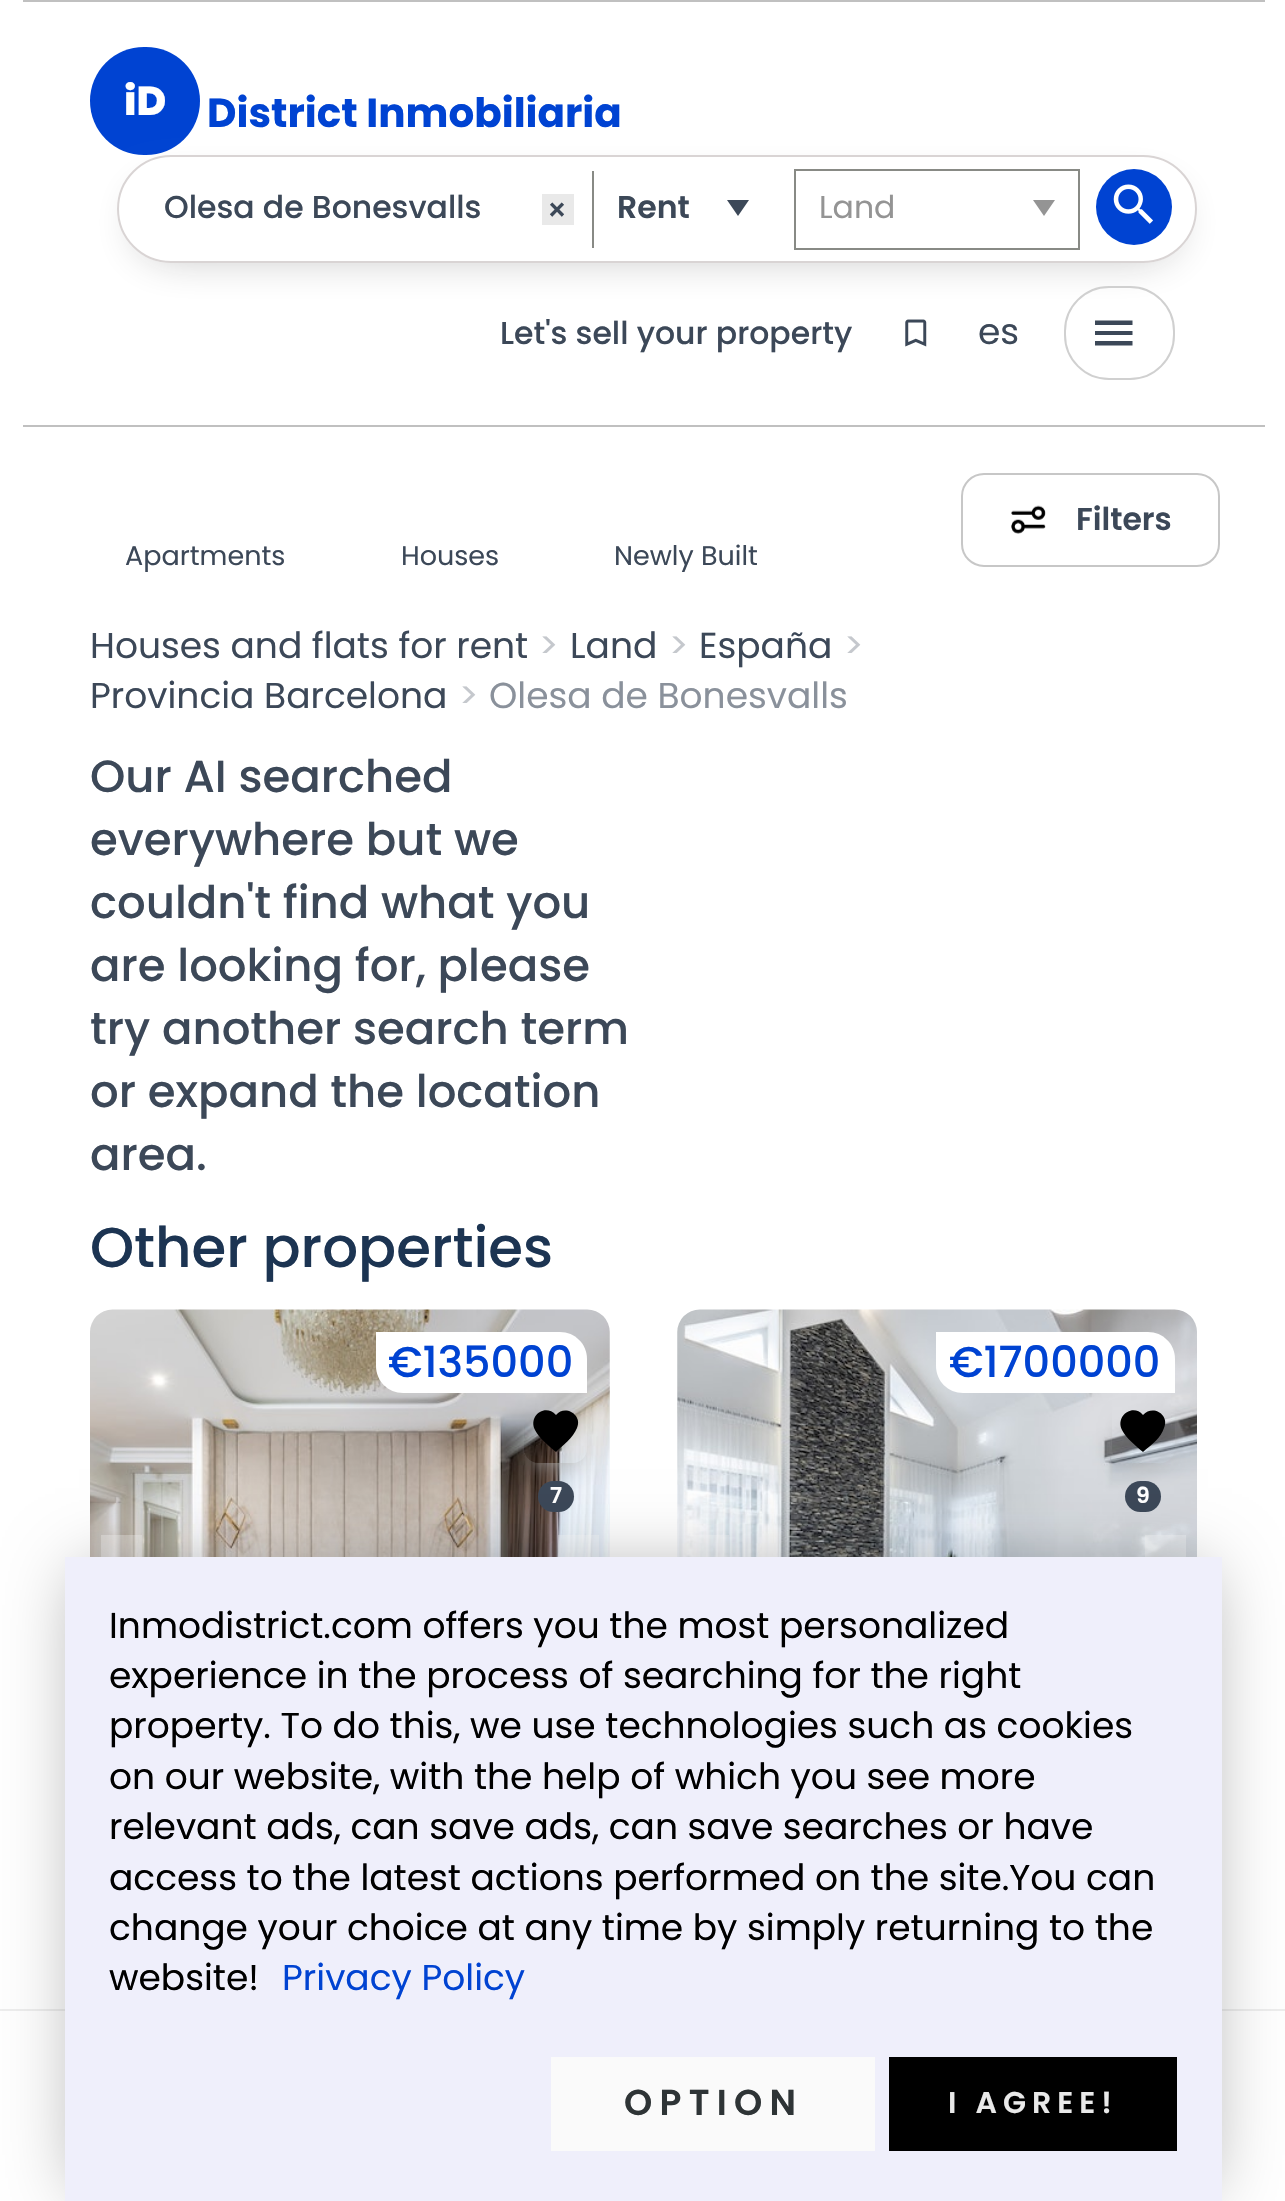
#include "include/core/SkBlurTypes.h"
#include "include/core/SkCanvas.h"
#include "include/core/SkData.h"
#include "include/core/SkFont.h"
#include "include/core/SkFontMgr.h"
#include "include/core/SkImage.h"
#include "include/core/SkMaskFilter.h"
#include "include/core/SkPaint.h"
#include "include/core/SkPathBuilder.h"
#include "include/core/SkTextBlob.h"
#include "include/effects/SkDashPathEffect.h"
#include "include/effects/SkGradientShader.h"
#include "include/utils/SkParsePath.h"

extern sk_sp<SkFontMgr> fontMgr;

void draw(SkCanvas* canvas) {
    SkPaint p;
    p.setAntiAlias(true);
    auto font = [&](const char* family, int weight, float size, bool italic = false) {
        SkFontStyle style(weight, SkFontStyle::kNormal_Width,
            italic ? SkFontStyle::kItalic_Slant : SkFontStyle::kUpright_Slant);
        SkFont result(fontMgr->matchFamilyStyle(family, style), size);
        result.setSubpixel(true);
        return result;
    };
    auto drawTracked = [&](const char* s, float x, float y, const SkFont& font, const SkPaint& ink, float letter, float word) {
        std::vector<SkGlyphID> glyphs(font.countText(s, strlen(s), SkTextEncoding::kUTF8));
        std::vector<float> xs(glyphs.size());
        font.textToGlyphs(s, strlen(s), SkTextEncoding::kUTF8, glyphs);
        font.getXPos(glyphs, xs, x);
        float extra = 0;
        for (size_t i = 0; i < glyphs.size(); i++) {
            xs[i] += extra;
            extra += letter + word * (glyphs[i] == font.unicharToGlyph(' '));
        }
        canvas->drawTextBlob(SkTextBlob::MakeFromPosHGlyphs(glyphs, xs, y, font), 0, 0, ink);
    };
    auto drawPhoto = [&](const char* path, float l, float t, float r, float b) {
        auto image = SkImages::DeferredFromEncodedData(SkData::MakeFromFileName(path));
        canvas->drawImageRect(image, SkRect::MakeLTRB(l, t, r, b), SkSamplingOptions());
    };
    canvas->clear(0xFFFFFFFF);
    p.setColor(0xFFC0C0C0);
    canvas->drawRect(SkRect::MakeLTRB(23, 0, 1265, 2), p);
    canvas->drawRect(SkRect::MakeLTRB(23, 425, 1265, 427), p);
    p.setColor(0xFF0043D2);
    canvas->drawRoundRect(SkRect::MakeLTRB(90, 47, 200, 155), 54, 54, p);
    auto font1 = font("Poppins", 800, 40.5f);
    p.setColor(0xFFFFFFFF);
    canvas->drawString("iD", 124, 115, font1, p);
    auto font2 = font("Poppins", 700, 40.5f);
    p.setColor(0xFF0043D2);
    canvas->drawString("District Inmobiliaria", 207, 127, font2, p);
    canvas->save();
    canvas->clipPath(SkPathBuilder(SkPathFillType::kEvenOdd).moveTo(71, 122).lineTo(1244, 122).lineTo(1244, 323).lineTo(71, 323).close().moveTo(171, 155).lineTo(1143, 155).cubicTo(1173, 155, 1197, 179, 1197, 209).cubicTo(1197, 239, 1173, 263, 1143, 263).lineTo(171, 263).cubicTo(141, 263, 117, 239, 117, 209).cubicTo(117, 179, 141, 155, 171, 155).close().detach(), true);
    p.setColor(0x4D141414);
    p.setMaskFilter(SkMaskFilter::MakeBlur(kNormal_SkBlurStyle, 22.5f));
    canvas->drawRoundRect(SkRect::MakeLTRB(140, 191, 1175, 254), 31.5f, 31.5f, p);
    p.setMaskFilter(nullptr);
    canvas->restore();
    p.setStyle(SkPaint::kStroke_Style);
    p.setStrokeWidth(2);
    p.setColor(0xFFD9D4D4);
    canvas->drawRoundRect(SkRect::MakeLTRB(118, 156, 1196, 262), 53, 53, p);
    auto font3 = font("Poppins", 500, 31.5f);
    p.setStyle(SkPaint::kFill_Style);
    p.setColor(0xFF3C4858);
    canvas->drawString("Olesa de Bonesvalls", 164, 218, font3, p);
    p.setColor(0xFFE9E9E9);
    canvas->drawRect(SkRect::MakeLTRB(542, 194, 574, 225), p);
    p.setColor(0xFF3C4858);
    canvas->drawString("×", 546, 221, font3, p);
    p.setColor(0xFF888A85);
    canvas->drawRect(SkRect::MakeLTRB(592, 171, 594, 248), p);
    auto font4 = font("Poppins", 600, 31.5f);
    p.setColor(0xFF3C4858);
    canvas->drawString("Rent", 617, 218, font4, p);
    canvas->drawPath(SkPathBuilder().moveTo(727, 200).lineTo(749, 200).lineTo(738, 216).close().detach(), p);
    p.setStyle(SkPaint::kStroke_Style);
    p.setColor(0xFF888A85);
    canvas->drawRect(SkRect::MakeLTRB(795, 170, 1079, 249), p);
    auto font5 = font("Poppins", 400, 31.5f);
    p.setStyle(SkPaint::kFill_Style);
    p.setColor(0xFF949494);
    canvas->drawString("Land", 819, 218, font5, p);
    canvas->drawPath(SkPathBuilder().moveTo(1033, 200).lineTo(1055, 200).lineTo(1044, 216).close().detach(), p);
    p.setColor(0xFF0043D2);
    canvas->drawCircle(1134, 207, 38, p);
    drawPhoto("media/1.png", 1113, 184, 1153, 224);
    p.setColor(0xFF3C4858);
    canvas->drawString("Let's sell your property", 500, 344, font3, p);
    drawPhoto("media/2.png", 905, 319, 927, 347);
    auto font6 = font("Poppins", 400, 36);
    canvas->drawString("es", 978, 344, font6, p);
    p.setStyle(SkPaint::kStroke_Style);
    p.setColor(0xFFD0D0D0);
    canvas->drawRoundRect(SkRect::MakeLTRB(1065, 287, 1174, 379), 44, 44, p);
    p.setStyle(SkPaint::kFill_Style);
    p.setColor(0xFF3C4858);
    canvas->drawPath(SkPathBuilder().moveTo(1095, 320.5f).lineTo(1132.5f, 320.5f).lineTo(1132.5f, 325).lineTo(1095, 325).close().moveTo(1095, 335).lineTo(1095, 331).lineTo(1132.5f, 331).lineTo(1132.5f, 335).close().moveTo(1095, 345.5f).lineTo(1095, 341).lineTo(1132.5f, 341).lineTo(1132.5f, 345.5f).close().detach(), p);
    p.setStyle(SkPaint::kStroke_Style);
    p.setColor(0xFFC7C7C7);
    canvas->drawRoundRect(SkRect::MakeLTRB(962, 474, 1219, 566), 22, 22, p);
    drawPhoto("media/3.png", 1011, 505, 1046, 534);
    p.setStyle(SkPaint::kFill_Style);
    p.setColor(0xFF3C4858);
    canvas->drawString("Filters", 1076, 530, font4, p);
    auto font7 = font("Poppins", 400, 27);
    {
        const struct { const char* s; float x, y; } items[] = {
            {"Apartments", 125, 565},
            {"Houses", 401, 565},
            {"Newly Built", 614, 565},
        };
        for (auto [s, x, y] : items) {
            canvas->drawString(s, x, y, font7, p);
        }
    }
    canvas->drawString("Houses and flats for rent", 90, 658, font6, p);
    p.setColor(0xFFC5C8CD);
    canvas->drawString(">", 539, 658, font6, p);
    p.setColor(0xFF3C4858);
    canvas->drawString("Land", 570, 658, font6, p);
    p.setColor(0xFFC5C8CD);
    canvas->drawString(">", 669, 658, font6, p);
    p.setColor(0xFF3C4858);
    canvas->drawString("España", 699, 658, font6, p);
    p.setColor(0xFFC5C8CD);
    canvas->drawString(">", 844, 658, font6, p);
    p.setColor(0xFF3C4858);
    canvas->drawString("Provincia Barcelona", 90, 708, font6, p);
    p.setColor(0xFFC5C8CD);
    canvas->drawString(">", 459, 708, font6, p);
    p.setColor(0xFF8A919B);
    canvas->drawString("Olesa de Bonesvalls", 489, 708, font6, p);
    auto font8 = font("Poppins", 500, 45);
    p.setColor(0xFF3C4858);
    {
        const struct { const char* s; float x, y; } items[] = {
            {"Our AI searched", 90, 792},
            {"everywhere but we", 90, 855},
            {"couldn't find what you", 90, 918},
            {"are looking for, please", 90, 981},
            {"try another search term", 90, 1044},
            {"or expand the location", 90, 1107},
            {"area.", 90, 1170},
        };
        for (auto [s, x, y] : items) {
            canvas->drawString(s, x, y, font8, p);
        }
    }
    auto font9 = font("Poppins", 500, 56.25f);
    p.setColor(0xFF1C3452);
    canvas->drawString("Other properties", 90, 1267, font9, p);
    drawPhoto("media/4.png", 90, 1309, 610, 1557);
    p.setColor(0xFFFFFFFF);
    canvas->drawPath(SkPathBuilder().moveTo(376, 1332).lineTo(560, 1332).cubicTo(575, 1332, 587, 1344, 587, 1359).lineTo(587, 1393).lineTo(403, 1393).cubicTo(388, 1393, 376, 1381, 376, 1366).close().detach(), p);
    auto font10 = font("Poppins", 500, 43);
    p.setColor(0xFF0043D2);
    canvas->drawString("€135000", 388, 1377, font10, p);
    canvas->save();
    canvas->clipPath(SkPathBuilder(SkPathFillType::kEvenOdd).moveTo(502, 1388).lineTo(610, 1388).lineTo(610, 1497).lineTo(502, 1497).close().moveTo(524, 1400).lineTo(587, 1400).lineTo(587, 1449).cubicTo(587, 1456.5f, 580.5f, 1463, 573, 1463).lineTo(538, 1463).cubicTo(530.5f, 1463, 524, 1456.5f, 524, 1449).close().detach(), true);
    p.setColor(0xFFB3B3B3);
    p.setMaskFilter(SkMaskFilter::MakeBlur(kNormal_SkBlurStyle, 11));
    canvas->drawRoundRect(SkRect::MakeLTRB(536, 1422, 576, 1463), 2, 2, p);
    p.setMaskFilter(nullptr);
    canvas->restore();
    p.setColor(0xFF000000);
    canvas->drawPath(SkPathBuilder().moveTo(556, 1452).cubicTo(549, 1446, 539, 1438, 535, 1430).cubicTo(528, 1416, 545, 1403, 556, 1415).cubicTo(565, 1404, 583, 1415, 577, 1428).cubicTo(573, 1438, 563, 1445, 556, 1452).close().detach(), p);
    p.setColor(0xFF3C4858);
    canvas->drawRoundRect(SkRect::MakeLTRB(538, 1481, 574, 1512), 15.5f, 15.5f, p);
    auto font11 = font("Poppins", 600, 22);
    p.setColor(0xFFFFFFFF);
    canvas->drawString("7", 550, 1503, font11, p);
    p.setColor(0x4DFFFFFF);
    canvas->drawRect(SkRect::MakeLTRB(101, 1535, 142, 1557), p);
    canvas->drawRect(SkRect::MakeLTRB(558, 1535, 599, 1557), p);
    drawPhoto("media/5.png", 677, 1309, 1197, 1557);
    p.setColor(0xFFFFFFFF);
    canvas->drawPath(SkPathBuilder().moveTo(936, 1332).lineTo(1148, 1332).cubicTo(1163, 1332, 1175, 1344, 1175, 1359).lineTo(1175, 1393).lineTo(963, 1393).cubicTo(948, 1393, 936, 1381, 936, 1366).close().detach(), p);
    p.setColor(0xFF0043D2);
    canvas->drawString("€1700000", 949, 1377, font10, p);
    canvas->save();
    canvas->clipPath(SkPathBuilder(SkPathFillType::kEvenOdd).moveTo(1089, 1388).lineTo(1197, 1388).lineTo(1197, 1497).lineTo(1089, 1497).close().moveTo(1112, 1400).lineTo(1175, 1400).lineTo(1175, 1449).cubicTo(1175, 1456.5f, 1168.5f, 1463, 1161, 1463).lineTo(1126, 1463).cubicTo(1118.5f, 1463, 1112, 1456.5f, 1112, 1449).close().detach(), true);
    p.setColor(0xFFB3B3B3);
    p.setMaskFilter(SkMaskFilter::MakeBlur(kNormal_SkBlurStyle, 11));
    canvas->drawRoundRect(SkRect::MakeLTRB(1123, 1422, 1163, 1463), 2, 2, p);
    p.setMaskFilter(nullptr);
    canvas->restore();
    p.setColor(0xFF000000);
    canvas->drawPath(SkPathBuilder().moveTo(1143, 1452).cubicTo(1136, 1446, 1126, 1438, 1122, 1430).cubicTo(1115, 1416, 1133, 1403, 1143, 1415).cubicTo(1153, 1404, 1170, 1415, 1164, 1428).cubicTo(1161, 1438, 1151, 1445, 1143, 1452).close().detach(), p);
    p.setColor(0xFF3C4858);
    canvas->drawRoundRect(SkRect::MakeLTRB(1125, 1481, 1161, 1512), 15.5f, 15.5f, p);
    p.setColor(0xFFFFFFFF);
    canvas->drawString("9", 1136, 1503, font11, p);
    {
        const struct { float l, t, r, b; SkColor color; } items[] = {
            {689, 1535, 729, 1557, 0x4DFFFFFF},
            {1145, 1535, 1186, 1557, 0x4DFFFFFF},
            {0, 2009, 1285, 2011, 0xFFEEEEEE},
        };
        for (auto [l, t, r, b, color] : items) {
            p.setColor(color);
            canvas->drawRect(SkRect::MakeLTRB(l, t, r, b), p);
        }
    }
    p.setColor(0x57000000);
    p.setMaskFilter(SkMaskFilter::MakeBlur(kNormal_SkBlurStyle, 34));
    canvas->drawRect(SkRect::MakeLTRB(79, 1571, 1208, 2189), p);
    p.setMaskFilter(nullptr);
    p.setColor(0xFFEFEFFB);
    canvas->drawRect(SkRect::MakeLTRB(65, 1557, 1222, 2201), p);
    p.setColor(0xFF000000);
    {
        const struct { const char* s; float x, y; } items[] = {
            {"Inmodistrict.com offers you the most personalized", 109, 1638},
            {"experience in the process of searching for the right", 109, 1688},
            {"property. To do this, we use technologies such as cookies", 109, 1738},
            {"on our website, with the help of which you see more", 109, 1789},
            {"relevant ads, can save ads, can save searches or have", 109, 1839},
            {"access to the latest actions performed on the site.You can", 109, 1890},
            {"change your choice at any time by simply returning to the", 109, 1940},
            {"website!", 109, 1990},
        };
        for (auto [s, x, y] : items) {
            canvas->drawString(s, x, y, font6, p);
        }
    }
    p.setColor(0xFF0043D2);
    canvas->drawString("Privacy Policy", 282, 1990, font6, p);
    p.setColor(0xFFFAFAFA);
    canvas->drawRect(SkRect::MakeLTRB(551, 2057, 875, 2151), p);
    auto font12 = font("Poppins", 600, 36);
    p.setColor(0xFF2E3436);
    drawTracked("OPTION", 624, 2115, font12, p, 7.25f, 0);
    p.setColor(0xFF000000);
    canvas->drawRect(SkRect::MakeLTRB(889, 2057, 1177, 2151), p);
    auto font13 = font("Poppins", 600, 30);
    p.setColor(0xFFE9E9E9);
    drawTracked("I AGREE!", 948, 2113, font13, p, 6, 0);
}
